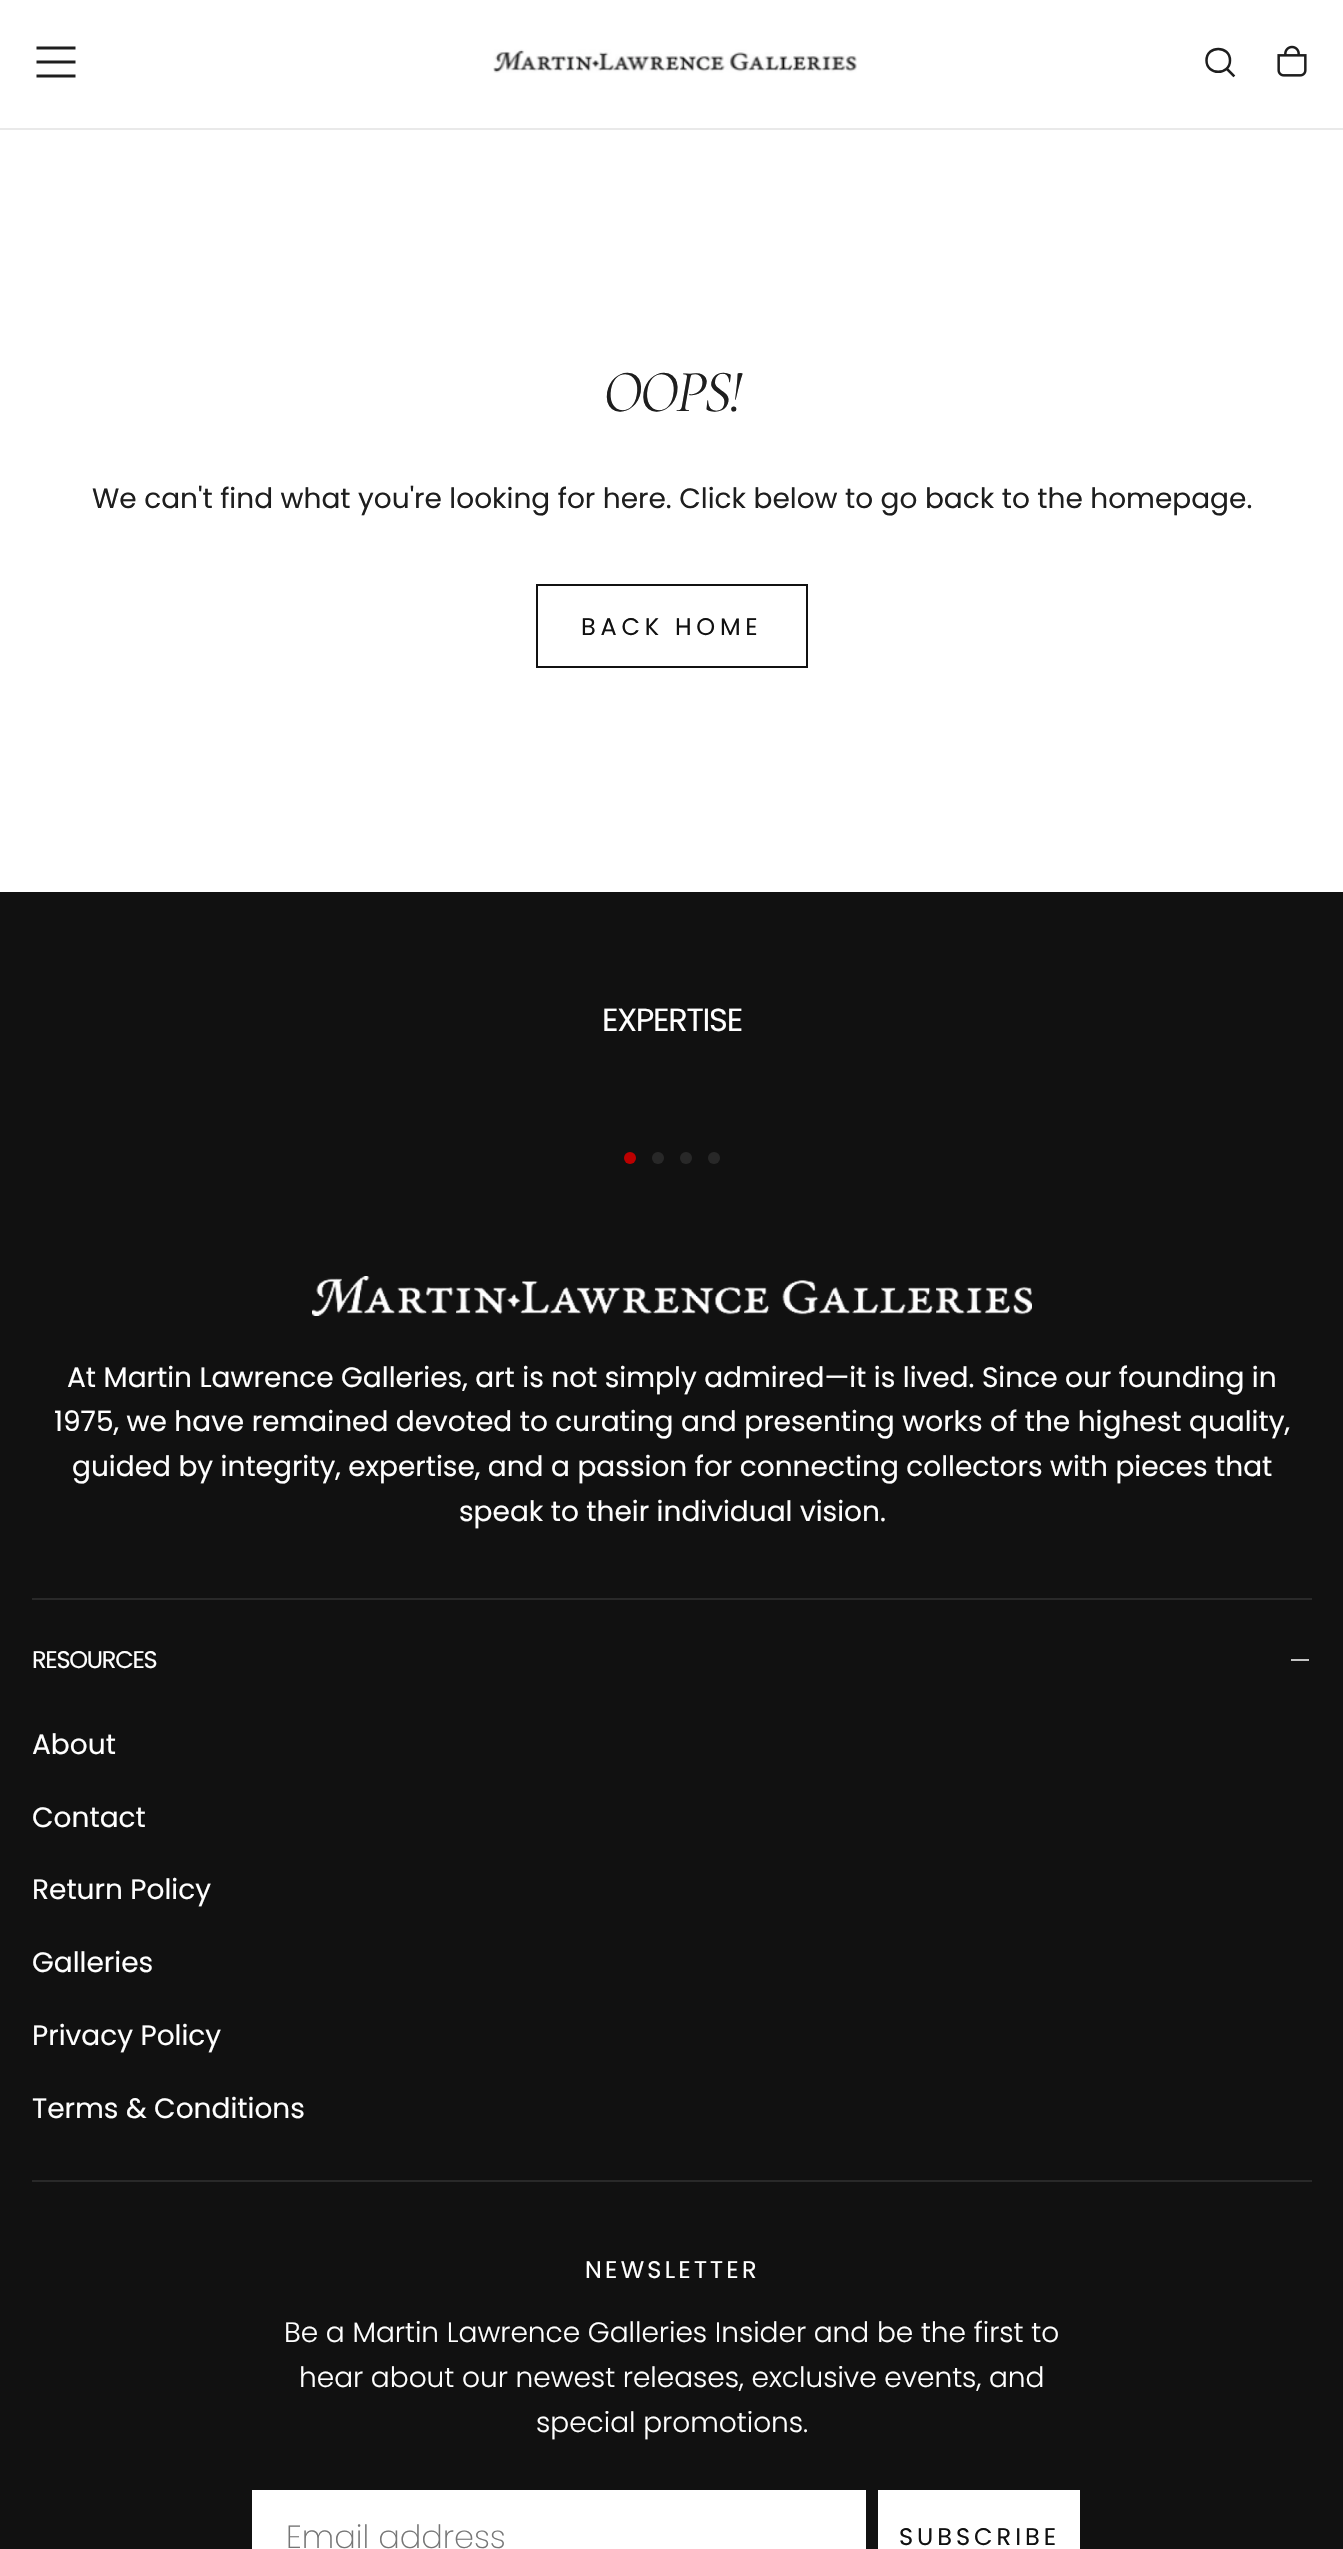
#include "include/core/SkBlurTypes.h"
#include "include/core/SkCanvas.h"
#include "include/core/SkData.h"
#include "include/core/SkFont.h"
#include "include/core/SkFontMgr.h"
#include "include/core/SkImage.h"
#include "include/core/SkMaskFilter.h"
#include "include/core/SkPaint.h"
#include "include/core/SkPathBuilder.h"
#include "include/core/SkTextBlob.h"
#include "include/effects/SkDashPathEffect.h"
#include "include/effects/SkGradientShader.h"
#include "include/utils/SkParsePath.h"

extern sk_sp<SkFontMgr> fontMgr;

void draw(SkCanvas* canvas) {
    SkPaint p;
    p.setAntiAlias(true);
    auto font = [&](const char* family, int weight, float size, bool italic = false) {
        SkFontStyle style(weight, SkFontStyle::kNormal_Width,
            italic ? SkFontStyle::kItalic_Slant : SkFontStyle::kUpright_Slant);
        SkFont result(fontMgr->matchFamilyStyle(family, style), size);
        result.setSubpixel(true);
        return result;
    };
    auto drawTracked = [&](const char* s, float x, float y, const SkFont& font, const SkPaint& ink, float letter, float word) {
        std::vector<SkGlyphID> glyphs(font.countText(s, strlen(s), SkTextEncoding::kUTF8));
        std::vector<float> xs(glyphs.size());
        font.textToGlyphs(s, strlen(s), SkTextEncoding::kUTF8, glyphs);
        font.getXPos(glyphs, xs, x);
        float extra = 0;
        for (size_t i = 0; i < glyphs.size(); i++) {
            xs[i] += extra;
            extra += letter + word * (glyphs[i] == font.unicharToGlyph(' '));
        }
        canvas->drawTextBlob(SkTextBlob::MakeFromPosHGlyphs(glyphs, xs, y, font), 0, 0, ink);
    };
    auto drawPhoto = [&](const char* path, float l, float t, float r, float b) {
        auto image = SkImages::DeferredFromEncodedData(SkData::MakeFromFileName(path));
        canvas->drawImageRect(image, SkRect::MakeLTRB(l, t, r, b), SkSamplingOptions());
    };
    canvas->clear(0xFFFFFFFF);
    p.setColor(0xFFE9E9E9);
    canvas->drawRect(SkRect::MakeLTRB(0, 128, 1343, 130), p);
    p.setStyle(SkPaint::kStroke_Style);
    p.setStrokeWidth(3);
    p.setStrokeCap(SkPaint::kSquare_Cap);
    p.setColor(0xFF1E1E1E);
    canvas->drawPath(SkPathBuilder().moveTo(38, 62).lineTo(74, 62).moveTo(38, 48).lineTo(74, 48).moveTo(38, 76).lineTo(74, 76).detach(), p);
    drawPhoto("media/1.png", 493, 49, 857, 73);
    p.setStrokeWidth(2.5f);
    canvas->drawPath(SkPathBuilder().moveTo(1233.5f, 75.5f).lineTo(1227, 69).moveTo(1230, 60.5f).cubicTo(1230, 75.5f, 1206.5f, 75.5f, 1206.5f, 60.5f).cubicTo(1206.5f, 45, 1230, 45, 1230, 60.5f).close().detach(), p);
    drawPhoto("media/2.png", 1277, 45, 1307, 77);
    auto font1 = font("Cormorant", 400, 60, true);
    p.setStyle(SkPaint::kFill_Style);
    drawTracked("OOPS!", 603, 411, font1, p, -2.5f, 0);
    auto font2 = font("Poppins", 400, 28);
    canvas->drawString("We can't find what you're looking for here. Click below to go back to the homepage.", 92, 508, font2, p);
    p.setStyle(SkPaint::kStroke_Style);
    p.setStrokeWidth(2);
    p.setStrokeCap(SkPaint::kButt_Cap);
    p.setColor(0xFF111111);
    canvas->drawRect(SkRect::MakeLTRB(537, 585, 807, 667), p);
    auto font3 = font("Poppins", 400, 24);
    p.setStyle(SkPaint::kFill_Style);
    drawTracked("BACK HOME", 581, 635, font3, p, 4.75f, 0);
    canvas->drawRect(SkRect::MakeLTRB(0, 892, 1343, 2549), p);
    auto font4 = font("Poppins", 400, 32);
    p.setColor(0xFFFFFFFF);
    drawTracked("EXPERTISE", 602, 1031, font4, p, -1.25f, 0);
    p.setColor(0xFFBC0000);
    canvas->drawCircle(630, 1158, 6, p);
    p.setColor(0xFF282828);
    canvas->drawCircle(658, 1158, 6, p);
    canvas->drawCircle(686, 1158, 6, p);
    canvas->drawCircle(714, 1158, 6, p);
    drawPhoto("media/3.png", 312, 1276, 1032, 1316);
    p.setColor(0xFFFFFFFF);
    {
        const struct { const char* s; float x, y; } items[] = {
            {"At Martin Lawrence Galleries, art is not simply admired—it is lived. Since our founding in", 67, 1387},
            {"1975, we have remained devoted to curating and presenting works of the highest quality,", 54, 1431},
            {"guided by integrity, expertise, and a passion for connecting collectors with pieces that", 72, 1476},
            {"speak to their individual vision.", 459, 1521},
        };
        for (auto [s, x, y] : items) {
            canvas->drawString(s, x, y, font2, p);
        }
    }
    p.setColor(0xFF292929);
    canvas->drawRect(SkRect::MakeLTRB(32, 1598, 1312, 1600), p);
    canvas->drawRect(SkRect::MakeLTRB(32, 2180, 1312, 2182), p);
    p.setColor(0xFFFFFFFF);
    drawTracked("RESOURCES", 32, 1668, font3, p, -1.25f, 0);
    p.setColor(0xFFC4C4C4);
    canvas->drawRect(SkRect::MakeLTRB(1291, 1659, 1309, 1661), p);
    p.setColor(0xFFFFFFFF);
    {
        const struct { const char* s; float x, y; } items[] = {
            {"About", 32, 1754},
            {"Contact", 32, 1827},
            {"Return Policy", 32, 1899},
            {"Galleries", 32, 1972},
            {"Privacy Policy", 32, 2045},
            {"Terms & Conditions", 32, 2118},
        };
        for (auto [s, x, y] : items) {
            canvas->drawString(s, x, y, font2, p);
        }
    }
    drawTracked("NEWSLETTER", 585, 2278, font3, p, 3.25f, 0);
    auto font5 = font("Poppins", 300, 28);
    {
        const struct { const char* s; float x, y; } items[] = {
            {"Be a Martin Lawrence Galleries Insider and be the first to", 284, 2342},
            {"hear about our newest releases, exclusive events, and", 299, 2387},
            {"special promotions.", 536, 2432},
        };
        for (auto [s, x, y] : items) {
            canvas->drawString(s, x, y, font5, p);
        }
    }
    canvas->drawRect(SkRect::MakeLTRB(252, 2490, 866, 2549), p);
    auto font6 = font("Poppins", 200, 32);
    p.setColor(0xFF767676);
    canvas->drawString("Email address", 286, 2548, font6, p);
    p.setColor(0xFFFFFFFF);
    canvas->drawRect(SkRect::MakeLTRB(878, 2490, 1080, 2549), p);
    p.setColor(0xFF111111);
    drawTracked("SUBSCRIBE", 899, 2545, font3, p, 4, 0);
}
